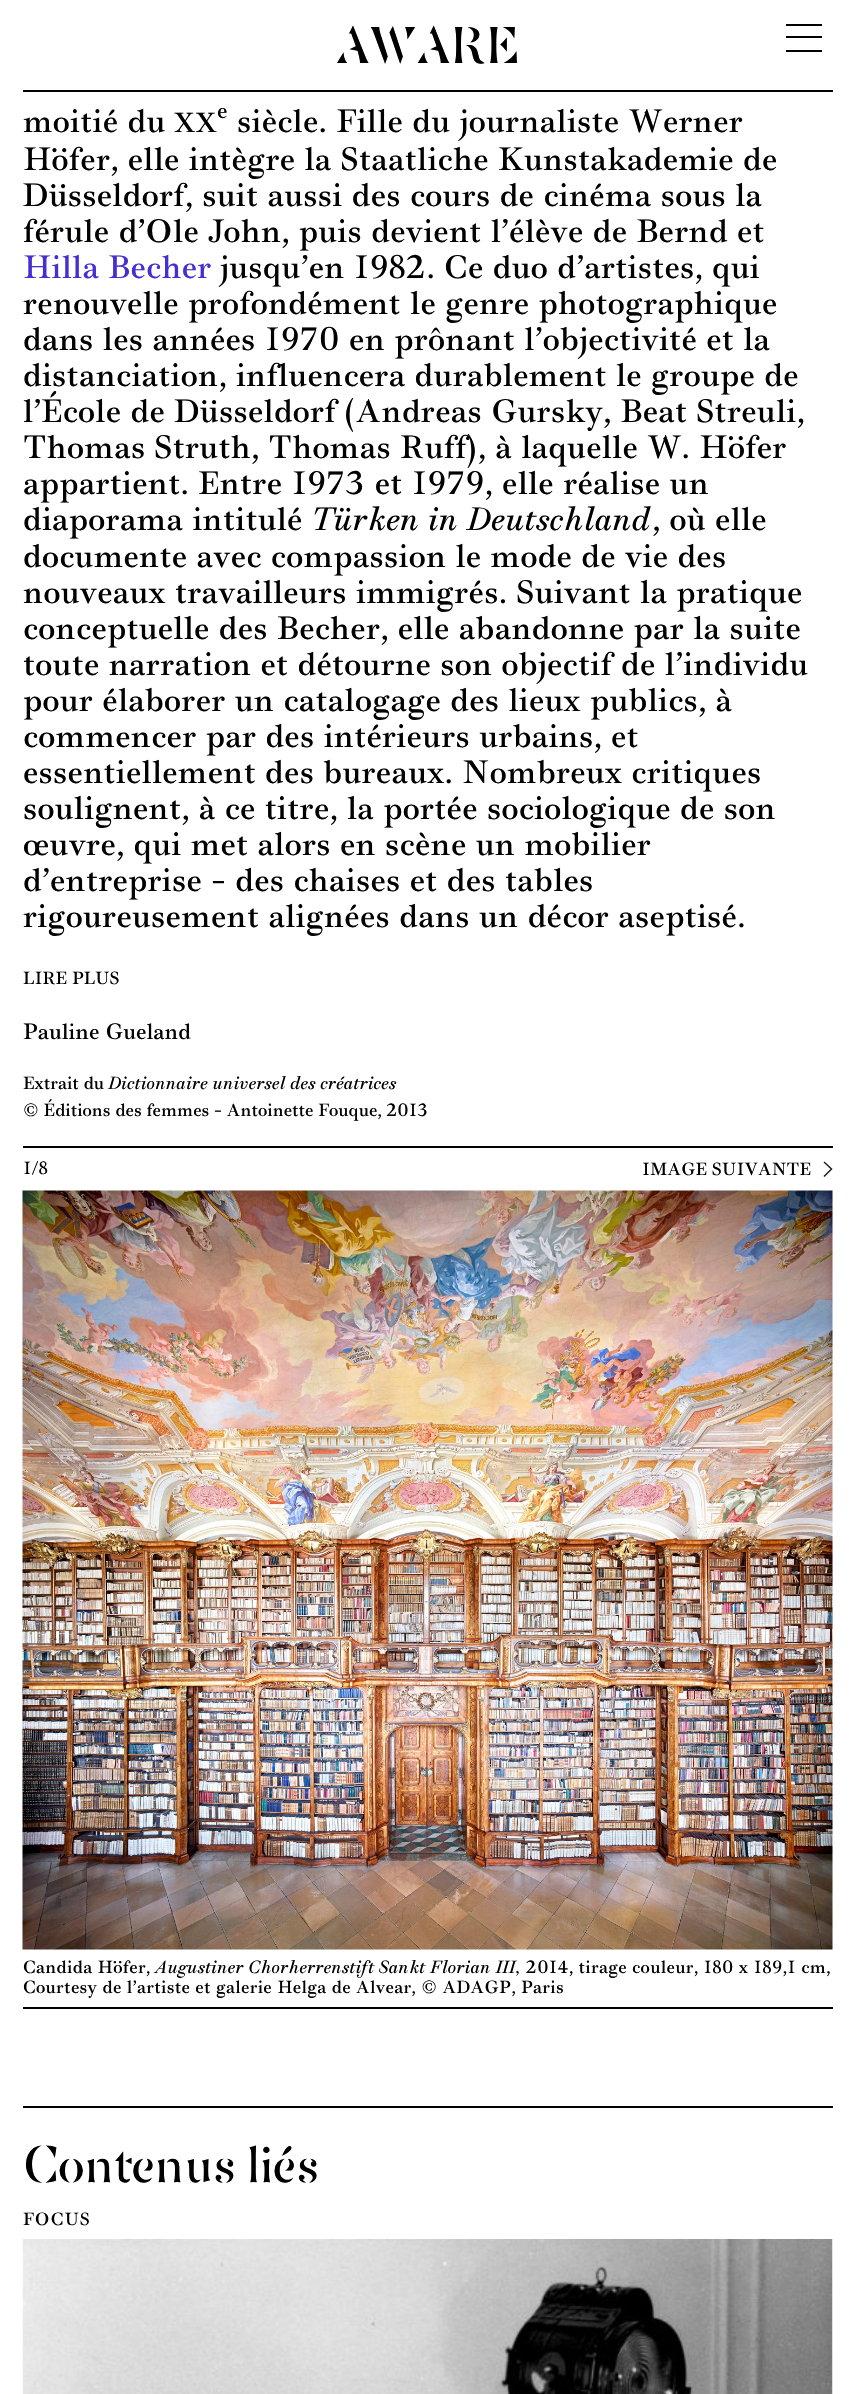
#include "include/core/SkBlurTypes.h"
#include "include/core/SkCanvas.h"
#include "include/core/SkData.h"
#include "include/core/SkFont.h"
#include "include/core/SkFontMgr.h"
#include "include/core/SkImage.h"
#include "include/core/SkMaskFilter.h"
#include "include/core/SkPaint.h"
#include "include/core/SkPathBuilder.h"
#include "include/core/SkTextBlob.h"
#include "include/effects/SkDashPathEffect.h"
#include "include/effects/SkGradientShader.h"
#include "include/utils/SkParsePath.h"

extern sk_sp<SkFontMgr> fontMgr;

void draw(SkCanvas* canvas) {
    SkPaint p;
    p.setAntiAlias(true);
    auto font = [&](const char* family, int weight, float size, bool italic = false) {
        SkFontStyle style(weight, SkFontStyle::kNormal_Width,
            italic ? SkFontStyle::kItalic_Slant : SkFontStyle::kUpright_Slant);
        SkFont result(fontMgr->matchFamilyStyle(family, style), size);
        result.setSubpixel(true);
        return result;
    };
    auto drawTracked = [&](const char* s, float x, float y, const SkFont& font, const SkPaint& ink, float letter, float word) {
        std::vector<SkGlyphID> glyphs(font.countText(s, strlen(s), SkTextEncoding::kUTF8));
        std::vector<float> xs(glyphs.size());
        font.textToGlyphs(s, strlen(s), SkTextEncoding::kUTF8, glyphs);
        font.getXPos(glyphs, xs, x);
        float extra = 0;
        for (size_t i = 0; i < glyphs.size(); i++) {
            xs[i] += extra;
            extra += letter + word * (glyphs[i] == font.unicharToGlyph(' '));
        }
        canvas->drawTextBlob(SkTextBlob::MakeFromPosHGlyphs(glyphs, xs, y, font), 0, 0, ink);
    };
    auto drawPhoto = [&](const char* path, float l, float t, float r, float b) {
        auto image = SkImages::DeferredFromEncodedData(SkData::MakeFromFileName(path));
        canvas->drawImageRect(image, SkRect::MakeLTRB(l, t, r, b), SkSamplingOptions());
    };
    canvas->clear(0xFFFFFFFF);
    p.setColor(0xFF000000);
    canvas->drawRect(SkRect::MakeLTRB(23, 90, 833, 92), p);
    auto font1 = font("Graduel", 200, 52.5f);
    canvas->drawString("AWARE", 335, 63, font1, p);
    {
        const struct { float l, t, r, b; SkColor color; } items[] = {
            {786, 24, 822, 26, 0xFF000000},
            {786, 50, 822, 52, 0xFF000000},
            {786, 36, 822, 38, 0xFF000000},
        };
        for (auto [l, t, r, b, color] : items) {
            p.setColor(color);
            canvas->drawRect(SkRect::MakeLTRB(l, t, r, b), p);
        }
    }
    auto font2 = font("Graduel", 400, 33);
    drawTracked("moitié du", 23, 132, font2, p, 0.3f, 0);
    auto font3 = font("Graduel", 400, 28);
    drawTracked("XX", 174, 132, font3, p, 0.3f, 0);
    auto font4 = font("Graduel", 400, 22.5f);
    drawTracked("e", 217, 118, font4, p, 0.3f, 0);
    {
        const struct { const char* s; float x, y; } items[] = {
            {"siècle. Fille du journaliste Werner", 237, 132},
            {"Höfer, elle intègre la Staatliche Kunstakademie de", 23, 170},
            {"Düsseldorf, suit aussi des cours de cinéma sous la", 23, 206},
            {"férule d’Ole John, puis devient l’élève de Bernd et", 23, 242},
        };
        for (auto [s, x, y] : items) {
            drawTracked(s, x, y, font2, p, 0.3f, 0);
        }
    }
    p.setColor(0xFF452FD3);
    drawTracked("Hilla Becher", 23, 278, font2, p, 0.3f, 0);
    p.setColor(0xFF000000);
    {
        const struct { const char* s; float x, y; } items[] = {
            {"jusqu’en 1982. Ce duo d’artistes, qui", 220, 278},
            {"renouvelle profondément le genre photographique", 23, 314},
            {"dans les années 1970 en prônant l’objectivité et la", 23, 350},
            {"distanciation, influencera durablement le groupe de", 23, 386},
            {"l’École de Düsseldorf (Andreas Gursky, Beat Streuli,", 23, 422},
            {"Thomas Struth, Thomas Ruff), à laquelle W. Höfer", 23, 458},
            {"appartient. Entre 1973 et 1979, elle réalise un", 23, 494},
            {"diaporama intitulé", 23, 530},
        };
        for (auto [s, x, y] : items) {
            drawTracked(s, x, y, font2, p, 0.3f, 0);
        }
    }
    auto font5 = font("Graduel", 400, 33, true);
    drawTracked("Türken in Deutschland", 311, 530, font5, p, 1.3f, 0);
    {
        const struct { const char* s; float x, y; } items[] = {
            {", où elle", 652, 530},
            {"documente avec compassion le mode de vie des", 23, 567},
            {"nouveaux travailleurs immigrés. Suivant la pratique", 23, 603},
            {"conceptuelle des Becher, elle abandonne par la suite", 23, 639},
            {"toute narration et détourne son objectif de l’individu", 23, 675},
            {"pour élaborer un catalogage des lieux publics, à", 23, 711},
            {"commencer par des intérieurs urbains, et", 23, 747},
            {"essentiellement des bureaux. Nombreux critiques", 23, 783},
            {"soulignent, à ce titre, la portée sociologique de son", 23, 819},
            {"œuvre, qui met alors en scène un mobilier", 23, 855},
            {"d’entreprise – des chaises et des tables", 23, 891},
            {"rigoureusement alignées dans un décor aseptisé.", 23, 927},
        };
        for (auto [s, x, y] : items) {
            drawTracked(s, x, y, font2, p, 0.3f, 0);
        }
    }
    auto font6 = font("Graduel", 400, 18);
    canvas->drawString("LIRE PLUS", 23, 984, font6, p);
    canvas->drawString("Pauline Gueland", 23, 1039, font4, p);
    canvas->drawString("Extrait du", 23, 1089, font6, p);
    auto font7 = font("Graduel", 400, 18, true);
    drawTracked("Dictionnaire universel des créatrices", 108, 1089, font7, p, 0.7f, 0);
    canvas->drawString("© Éditions des femmes – Antoinette Fouque, 2013", 23, 1116, font6, p);
    canvas->drawRect(SkRect::MakeLTRB(23, 1146, 833, 1148), p);
    canvas->drawString("1/8", 23, 1174, font6, p);
    canvas->drawString("IMAGE SUIVANTE", 642, 1175, font6, p);
    p.setStyle(SkPaint::kStroke_Style);
    p.setStrokeWidth(1.5f);
    p.setColor(0xFF1D1D1B);
    canvas->drawPath(SkPathBuilder().moveTo(824, 1176.5f).lineTo(831.5f, 1169).lineTo(824, 1162).detach(), p);
    drawPhoto("media/1.png", 22, 1190, 833, 1950);
    p.setStyle(SkPaint::kFill_Style);
    p.setColor(0xFF000000);
    canvas->drawRect(SkRect::MakeLTRB(23, 2007, 833, 2009), p);
    drawTracked("Candida Höfer,", 23, 1973, font6, p, 0.3f, 0);
    drawTracked("Augustiner Chorherrenstift Sankt Florian III,", 155, 1973, font7, p, 0.7f, 0);
    drawTracked("2014, tirage couleur, 180 x 189,1 cm,", 526, 1973, font6, p, 0.3f, 0);
    drawTracked("Courtesy de l’artiste et galerie Helga de Alvear, © ADAGP, Paris", 23, 1993, font6, p, 0.3f, 0);
    canvas->drawRect(SkRect::MakeLTRB(23, 2106, 833, 2108), p);
    canvas->drawString("Contenus liés", 23, 2182, font1, p);
    drawTracked("FOCUS", 23, 2225, font6, p, 1, 0);
    drawPhoto("media/2.png", 22, 2239, 833, 2394);
}
